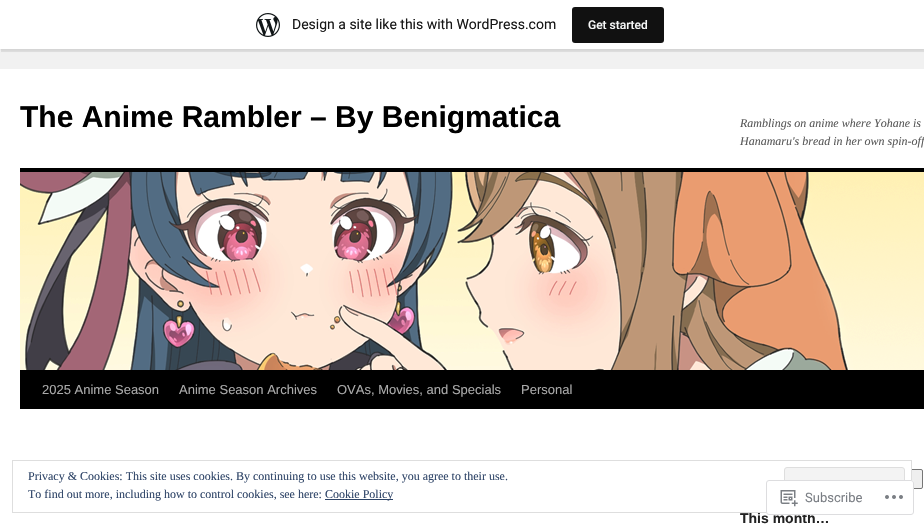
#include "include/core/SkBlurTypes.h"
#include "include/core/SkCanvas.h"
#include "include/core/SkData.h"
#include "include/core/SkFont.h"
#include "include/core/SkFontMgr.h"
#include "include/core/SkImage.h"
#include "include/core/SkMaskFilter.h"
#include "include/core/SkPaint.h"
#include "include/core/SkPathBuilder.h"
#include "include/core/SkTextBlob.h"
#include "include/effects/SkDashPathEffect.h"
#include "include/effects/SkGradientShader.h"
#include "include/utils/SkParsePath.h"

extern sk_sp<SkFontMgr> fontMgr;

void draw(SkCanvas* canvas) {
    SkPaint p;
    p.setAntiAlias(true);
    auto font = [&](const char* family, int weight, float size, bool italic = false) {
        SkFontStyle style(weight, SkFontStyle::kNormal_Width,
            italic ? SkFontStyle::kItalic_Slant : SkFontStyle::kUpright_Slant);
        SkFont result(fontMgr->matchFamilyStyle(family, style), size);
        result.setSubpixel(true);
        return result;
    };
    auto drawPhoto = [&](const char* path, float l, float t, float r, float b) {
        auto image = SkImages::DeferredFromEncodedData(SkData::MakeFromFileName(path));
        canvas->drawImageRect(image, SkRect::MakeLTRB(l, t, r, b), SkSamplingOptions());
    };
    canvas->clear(0xFFF1F1F1);
    p.setColor(0x0D000000);
    p.setMaskFilter(SkMaskFilter::MakeBlur(kNormal_SkBlurStyle, 1));
    canvas->drawRect(SkRect::MakeLTRB(0, 1, 924, 50), p);
    p.setMaskFilter(nullptr);
    p.setColor(0x14000000);
    canvas->drawPath(SkPathBuilder().moveTo(1, 49).lineTo(1, 52).lineTo(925, 52).lineTo(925, 3).lineTo(924, 3).lineTo(924, 49).close().detach(), p);
    p.setColor(0xFFFFFFFF);
    canvas->drawRect(SkRect::MakeLTRB(0, 0, 924, 49), p);
    drawPhoto("media/1.png", 256, 13, 280, 37);
    auto font1 = font("Roboto", 400, 14);
    p.setColor(0xFF171717);
    canvas->drawString("Design a site like this with WordPress.com", 292, 29, font1, p);
    p.setColor(0xFF111111);
    canvas->drawRoundRect(SkRect::MakeLTRB(572, 7, 664, 43), 3, 3, p);
    auto font2 = font("Roboto", 500, 12);
    p.setColor(0xFFF6F7F7);
    canvas->drawString("Get started", 588, 29, font2, p);
    p.setColor(0xFFFFFFFF);
    canvas->drawRect(SkRect::MakeLTRB(0, 69, 924, 525), p);
    auto font3 = font("Liberation Sans", 700, 30);
    p.setColor(0xFF000000);
    canvas->drawString("The Anime Rambler – By Benigmatica", 20, 127, font3, p);
    auto font4 = font("Liberation Serif", 400, 12, true);
    p.setColor(0xFF595959);
    canvas->drawString("Ramblings on anime where Yohane is", 740, 127, font4, p);
    canvas->drawString("Hanamaru's bread in her own spin-off", 740, 145, font4, p);
    p.setColor(0xFF000000);
    canvas->drawRect(SkRect::MakeLTRB(20, 168, 924, 172), p);
    canvas->drawRect(SkRect::MakeLTRB(20, 370, 924, 409), p);
    drawPhoto("media/2.png", 20, 172, 924, 370);
    auto font5 = font("Liberation Sans", 400, 13);
    p.setColor(0xFFAAAAAA);
    {
        const struct { const char* s; float x, y; } items[] = {
            {"2025 Anime Season", 42, 394},
            {"Anime Season Archives", 179, 394},
            {"OVAs, Movies, and Specials", 337, 394},
            {"Personal", 521, 394},
        };
        for (auto [s, x, y] : items) {
            canvas->drawString(s, x, y, font5, p);
        }
    }
    p.setColor(0xFFEFEFEF);
    canvas->drawRoundRect(SkRect::MakeLTRB(869.5f, 469.5f, 922.5f, 488.5f), 1.5f, 1.5f, p);
    p.setStyle(SkPaint::kStroke_Style);
    p.setStrokeWidth(1);
    p.setColor(0xFF767676);
    canvas->drawRoundRect(SkRect::MakeLTRB(869.5f, 469.5f, 922.5f, 488.5f), 1.5f, 1.5f, p);
    auto font6 = font("Liberation Sans", 700, 14);
    p.setStyle(SkPaint::kFill_Style);
    p.setColor(0xFF222222);
    canvas->drawString("This month…", 740, 523, font6, p);
    p.setColor(0xFFFFFFFF);
    canvas->drawRect(SkRect::MakeLTRB(869, 469, 911, 489), p);
    p.setStyle(SkPaint::kStroke_Style);
    p.setColor(0xFFDEDEDE);
    canvas->drawRect(SkRect::MakeLTRB(12.5f, 460.5f, 911.5f, 512.5f), p);
    auto font7 = font("Liberation Serif", 400, 12);
    p.setStyle(SkPaint::kFill_Style);
    p.setColor(0xFF2E4467);
    canvas->drawString("Privacy & Cookies: This site uses cookies. By continuing to use this website, you agree to their use.", 28, 480, font7, p);
    p.setColor(0xFFF3F3F3);
    canvas->drawRoundRect(SkRect::MakeLTRB(784.5f, 467.5f, 904.5f, 505.5f), 2.5f, 2.5f, p);
    p.setStyle(SkPaint::kStroke_Style);
    p.setColor(0xFFDEDEDE);
    canvas->drawRoundRect(SkRect::MakeLTRB(784.5f, 467.5f, 904.5f, 505.5f), 2.5f, 2.5f, p);
    p.setStyle(SkPaint::kFill_Style);
    p.setColor(0xFF2E4467);
    canvas->drawString("To find out more, including how to control cookies, see here:", 28, 498, font7, p);
    canvas->drawRect(SkRect::MakeLTRB(325, 499, 393, 500), p);
    canvas->drawString("Cookie Policy", 325, 498, font7, p);
    p.setColor(0xFAFFFFFF);
    canvas->drawRoundRect(SkRect::MakeLTRB(766, 480, 914, 515), 3, 3, p);
    p.setStyle(SkPaint::kStroke_Style);
    p.setColor(0xFADCDCDE);
    canvas->drawRoundRect(SkRect::MakeLTRB(766.5f, 480.5f, 913.5f, 514.5f), 2.5f, 2.5f, p);
    drawPhoto("media/3.png", 780, 490, 798, 507);
    auto font8 = font("Roboto", 400, 13);
    p.setStyle(SkPaint::kFill_Style);
    p.setColor(0xFF7A7E84);
    canvas->drawString("Subscribe", 805, 502, font8, p);
    drawPhoto("media/4.png", 885, 495, 903, 499);
}
